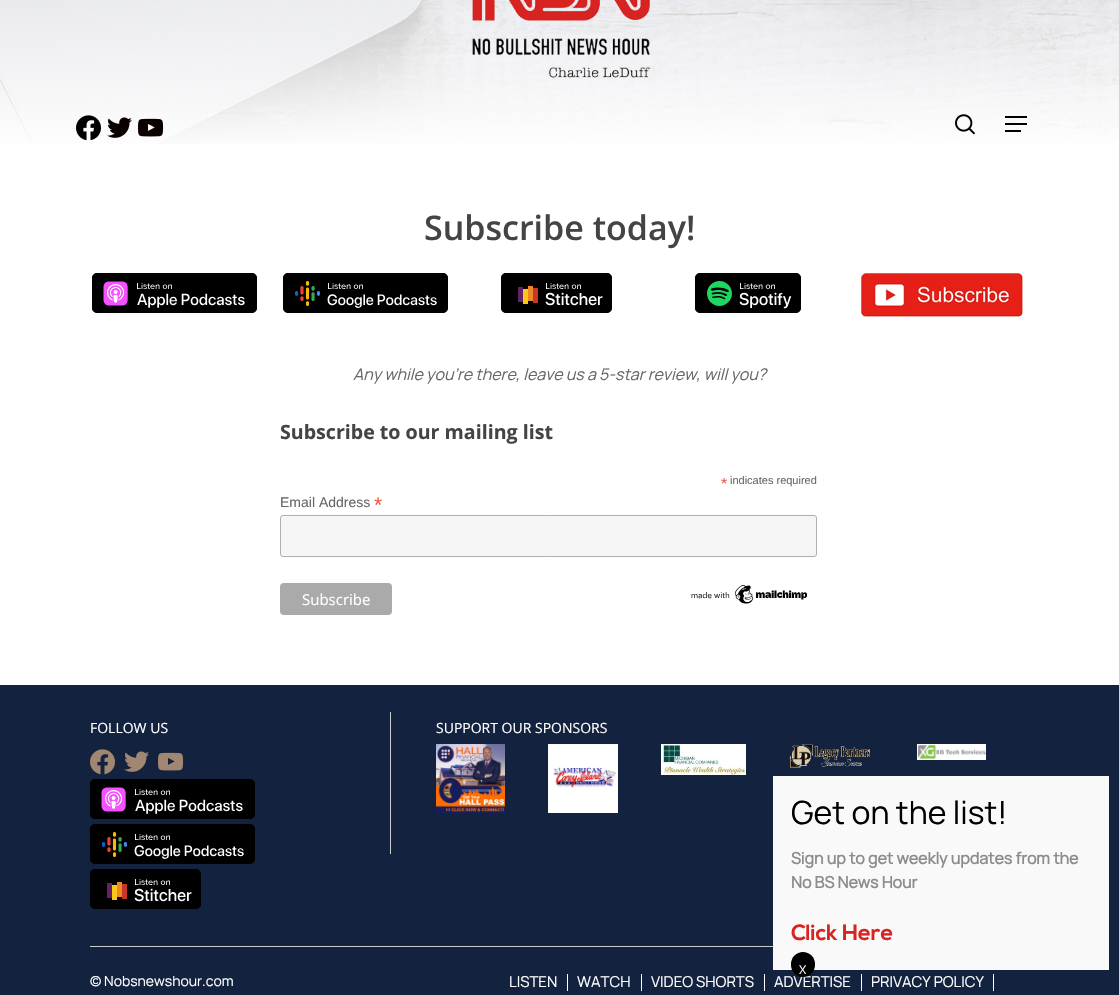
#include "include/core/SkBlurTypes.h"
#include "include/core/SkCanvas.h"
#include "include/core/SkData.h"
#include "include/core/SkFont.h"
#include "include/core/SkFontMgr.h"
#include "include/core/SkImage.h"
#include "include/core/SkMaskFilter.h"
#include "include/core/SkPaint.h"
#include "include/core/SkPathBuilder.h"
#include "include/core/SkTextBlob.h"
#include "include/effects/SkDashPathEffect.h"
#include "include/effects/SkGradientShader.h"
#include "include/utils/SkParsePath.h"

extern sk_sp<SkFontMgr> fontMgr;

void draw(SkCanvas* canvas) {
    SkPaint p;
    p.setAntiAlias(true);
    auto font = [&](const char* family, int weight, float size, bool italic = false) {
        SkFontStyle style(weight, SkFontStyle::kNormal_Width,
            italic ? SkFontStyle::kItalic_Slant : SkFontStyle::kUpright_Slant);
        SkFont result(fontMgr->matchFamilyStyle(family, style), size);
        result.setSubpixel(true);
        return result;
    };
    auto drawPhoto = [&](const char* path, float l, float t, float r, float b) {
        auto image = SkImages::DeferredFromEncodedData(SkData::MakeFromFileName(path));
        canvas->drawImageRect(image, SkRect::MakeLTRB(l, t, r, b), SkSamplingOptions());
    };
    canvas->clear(0xFFFFFFFF);
    drawPhoto("media/1.png", 0, 0, 1119, 144);
    drawPhoto("media/2.png", 472, 0, 650, 78);
    drawPhoto("media/3.png", 76, 115, 101, 141);
    drawPhoto("media/4.png", 107, 117, 132, 138);
    drawPhoto("media/5.png", 138, 118, 164, 137);
    drawPhoto("media/6.png", 955, 114, 975, 135);
    {
        const struct { float l, t, r, b; SkColor color; } items[] = {
            {1005, 116, 1027, 118, 0xFF000000},
            {1005, 130, 1021, 132, 0xFF000000},
            {1005, 123, 1027, 125, 0xFF000000},
        };
        for (auto [l, t, r, b, color] : items) {
            p.setColor(color);
            canvas->drawRect(SkRect::MakeLTRB(l, t, r, b), p);
        }
    }
    auto font1 = font("Open Sans", 600, 34);
    p.setColor(0xFF444444);
    canvas->drawString("Subscribe today!", 424, 240, font1, p);
    p.setColor(0xFF000000);
    canvas->drawRoundRect(SkRect::MakeLTRB(92, 273, 257, 313), 5, 5, p);
    drawPhoto("media/7.png", 103, 281, 245, 308);
    p.setStyle(SkPaint::kStroke_Style);
    p.setStrokeWidth(1);
    canvas->drawRoundRect(SkRect::MakeLTRB(92.5f, 273.5f, 256.5f, 312.5f), 4.5f, 4.5f, p);
    p.setStyle(SkPaint::kFill_Style);
    canvas->drawRoundRect(SkRect::MakeLTRB(283, 273, 448, 313), 5, 5, p);
    drawPhoto("media/8.png", 295, 281, 437, 308);
    p.setStyle(SkPaint::kStroke_Style);
    canvas->drawRoundRect(SkRect::MakeLTRB(283.5f, 273.5f, 447.5f, 312.5f), 4.5f, 4.5f, p);
    p.setStyle(SkPaint::kFill_Style);
    canvas->drawRoundRect(SkRect::MakeLTRB(501, 273, 612, 313), 5, 5, p);
    drawPhoto("media/9.png", 518, 283, 603, 306);
    p.setStyle(SkPaint::kStroke_Style);
    canvas->drawRoundRect(SkRect::MakeLTRB(501.5f, 273.5f, 611.5f, 312.5f), 4.5f, 4.5f, p);
    p.setStyle(SkPaint::kFill_Style);
    canvas->drawRoundRect(SkRect::MakeLTRB(695, 273, 801, 313), 5, 5, p);
    drawPhoto("media/10.png", 707, 281, 792, 309);
    p.setStyle(SkPaint::kStroke_Style);
    canvas->drawRoundRect(SkRect::MakeLTRB(695.5f, 273.5f, 800.5f, 312.5f), 4.5f, 4.5f, p);
    drawPhoto("media/11.png", 861, 273, 1023, 317);
    auto font2 = font("Manrope", 200, 16, true);
    p.setStyle(SkPaint::kFill_Style);
    p.setColor(0xFF676767);
    canvas->drawString("Any while you’re there, leave us a 5-star review, will you?", 353, 380, font2, p);
    auto font3 = font("Open Sans", 700, 19.6f);
    p.setColor(0xFF444444);
    canvas->drawString("Subscribe to our mailing list", 280, 439, font3, p);
    auto font4 = font("Liberation Sans", 400, 16);
    p.setColor(0xFFE85C41);
    canvas->drawString("*", 721, 489, font4, p);
    auto font5 = font("Liberation Sans", 400, 11);
    p.setColor(0xFF676767);
    canvas->drawString("indicates required", 730, 484, font5, p);
    auto font6 = font("Liberation Sans", 400, 14);
    canvas->drawString("Email Address", 280, 507, font6, p);
    auto font7 = font("Liberation Sans", 400, 21);
    p.setColor(0xFFE85C41);
    canvas->drawString("*", 374, 512, font7, p);
    p.setColor(0xFFF5F5F5);
    canvas->drawRoundRect(SkRect::MakeLTRB(280.5f, 515.5f, 816.5f, 556.5f), 2.5f, 2.5f, p);
    p.setStyle(SkPaint::kStroke_Style);
    p.setColor(0xFFABB0B2);
    canvas->drawRoundRect(SkRect::MakeLTRB(280.5f, 515.5f, 816.5f, 556.5f), 2.5f, 2.5f, p);
    p.setStyle(SkPaint::kFill_Style);
    p.setColor(0xFFAAAAAA);
    canvas->drawRoundRect(SkRect::MakeLTRB(280, 583, 392, 615), 4, 4, p);
    auto font8 = font("Open Sans", 400, 15);
    p.setColor(0xFFFFFFFF);
    canvas->drawString("Subscribe", 302, 605, font8, p);
    drawPhoto("media/12.png", 691, 585, 807, 604);
    p.setColor(0xFF13223E);
    canvas->drawRect(SkRect::MakeLTRB(0, 685, 1119, 995), p);
    p.setColor(0xFFCCCCCC);
    canvas->drawRect(SkRect::MakeLTRB(90, 946, 773, 947), p);
    auto font9 = font("Open Sans", 400, 14);
    p.setColor(0xFFFFFFFF);
    canvas->drawString("FOLLOW US", 90, 733, font9, p);
    drawPhoto("media/13.png", 90, 749, 115, 775);
    drawPhoto("media/14.png", 124, 751, 149, 772);
    drawPhoto("media/15.png", 158, 752, 184, 771);
    p.setColor(0xFF000000);
    canvas->drawRoundRect(SkRect::MakeLTRB(90, 779, 255, 819), 5, 5, p);
    drawPhoto("media/7.png", 101, 787, 243, 814);
    p.setStyle(SkPaint::kStroke_Style);
    canvas->drawRoundRect(SkRect::MakeLTRB(90.5f, 779.5f, 254.5f, 818.5f), 4.5f, 4.5f, p);
    p.setStyle(SkPaint::kFill_Style);
    canvas->drawRoundRect(SkRect::MakeLTRB(90, 824, 255, 864), 5, 5, p);
    drawPhoto("media/8.png", 102, 832, 244, 859);
    p.setStyle(SkPaint::kStroke_Style);
    canvas->drawRoundRect(SkRect::MakeLTRB(90.5f, 824.5f, 254.5f, 863.5f), 4.5f, 4.5f, p);
    p.setStyle(SkPaint::kFill_Style);
    canvas->drawRoundRect(SkRect::MakeLTRB(90, 869, 201, 909), 5, 5, p);
    drawPhoto("media/9.png", 107, 879, 192, 902);
    p.setStyle(SkPaint::kStroke_Style);
    canvas->drawRoundRect(SkRect::MakeLTRB(90.5f, 869.5f, 200.5f, 908.5f), 4.5f, 4.5f, p);
    p.setStyle(SkPaint::kFill_Style);
    p.setColor(0xFFCCCCCC);
    canvas->drawRect(SkRect::MakeLTRB(390, 712, 391, 854), p);
    p.setColor(0xFFFFFFFF);
    canvas->drawString("SUPPORT OUR SPONSORS", 436, 733, font9, p);
    drawPhoto("media/16.png", 436, 744, 505, 813);
    drawPhoto("media/17.png", 548, 744, 618, 813);
    drawPhoto("media/18.png", 661, 744, 746, 775);
    drawPhoto("media/19.png", 789, 744, 870, 768);
    drawPhoto("media/20.png", 917, 744, 986, 760);
    auto font10 = font("Manrope", 200, 14);
    canvas->drawString("© Nobsnewshour.com", 90, 986, font10, p);
    auto font11 = font("Manrope", 200, 15);
    canvas->drawString("LISTEN", 509, 987, font11, p);
    canvas->drawRect(SkRect::MakeLTRB(567, 974, 568, 991), p);
    canvas->drawString("WATCH", 577, 987, font11, p);
    canvas->drawRect(SkRect::MakeLTRB(641, 974, 642, 991), p);
    canvas->drawString("VIDEO SHORTS", 651, 987, font11, p);
    canvas->drawRect(SkRect::MakeLTRB(764, 974, 765, 991), p);
    canvas->drawString("ADVERTISE", 774, 987, font11, p);
    canvas->drawRect(SkRect::MakeLTRB(861, 974, 862, 991), p);
    canvas->drawString("PRIVACY POLICY", 871, 987, font11, p);
    canvas->drawRect(SkRect::MakeLTRB(993, 974, 994, 991), p);
    p.setColor(0xFFF9F9F9);
    canvas->drawRect(SkRect::MakeLTRB(773, 776, 1109, 970), p);
    auto font12 = font("Manrope", 200, 32);
    p.setColor(0xFF000000);
    canvas->drawString("Get on the list!", 791, 824, font12, p);
    auto font13 = font("Manrope", 700, 16);
    p.setColor(0xFF8C8C8C);
    canvas->drawString("Sign up to get weekly updates from the", 791, 864, font13, p);
    canvas->drawString("No BS News Hour", 791, 888, font13, p);
    auto font14 = font("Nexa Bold", 700, 22);
    p.setColor(0xFFD72422);
    canvas->drawString("Click Here", 791, 940, font14, p);
    p.setColor(0xFF000000);
    canvas->drawRoundRect(SkRect::MakeLTRB(791, 952, 815, 977), 12, 12, p);
    auto font15 = font("Manrope", 200, 12);
    p.setColor(0xFFFFFFFF);
    canvas->drawString("X", 799, 974, font15, p);
}
